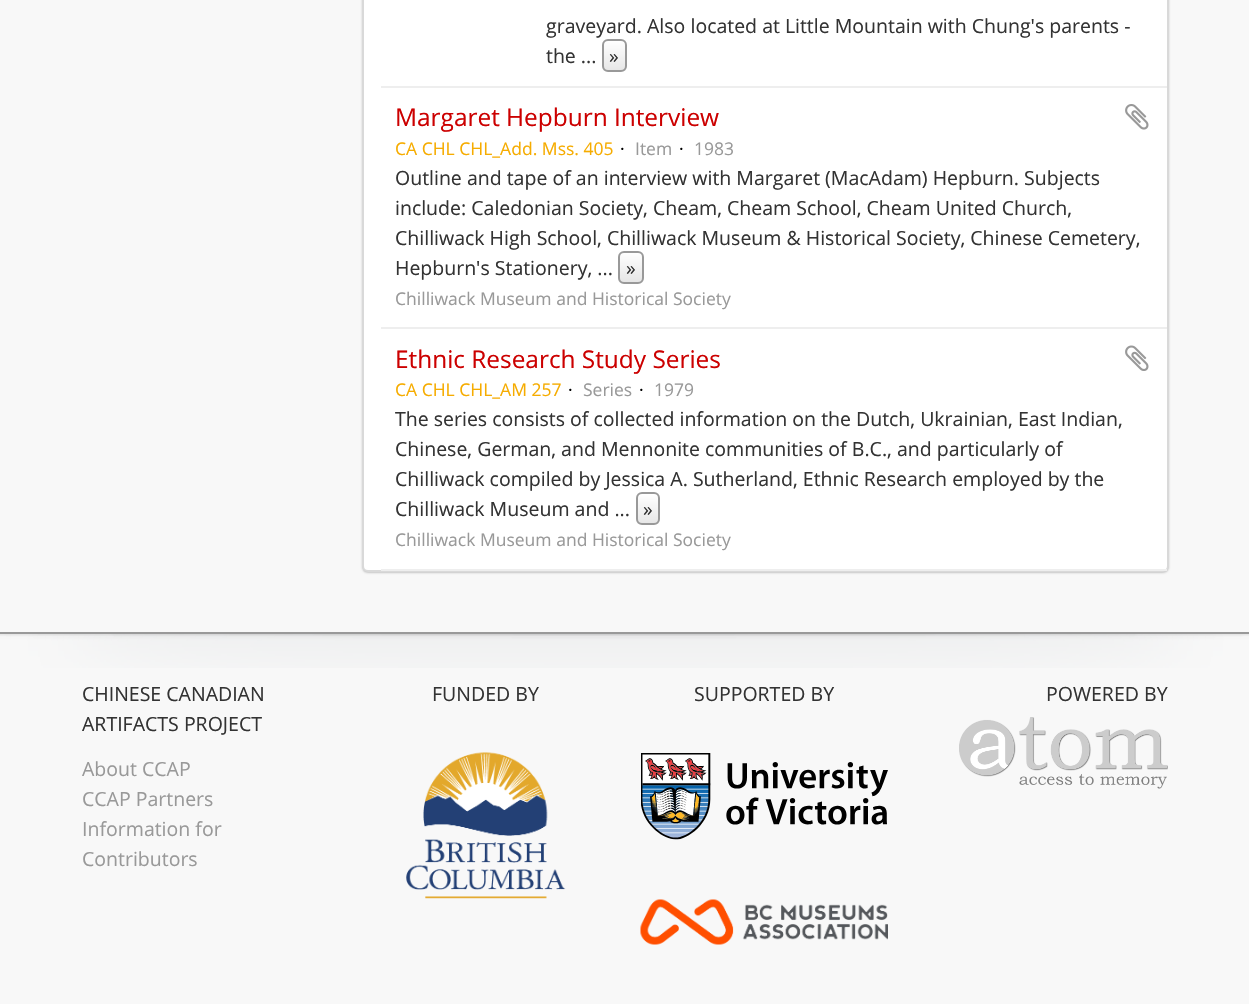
#include "include/core/SkBlurTypes.h"
#include "include/core/SkCanvas.h"
#include "include/core/SkData.h"
#include "include/core/SkFont.h"
#include "include/core/SkFontMgr.h"
#include "include/core/SkImage.h"
#include "include/core/SkMaskFilter.h"
#include "include/core/SkPaint.h"
#include "include/core/SkPathBuilder.h"
#include "include/core/SkTextBlob.h"
#include "include/effects/SkDashPathEffect.h"
#include "include/effects/SkGradientShader.h"
#include "include/utils/SkParsePath.h"

extern sk_sp<SkFontMgr> fontMgr;

void draw(SkCanvas* canvas) {
    SkPaint p;
    p.setAntiAlias(true);
    auto font = [&](const char* family, int weight, float size, bool italic = false) {
        SkFontStyle style(weight, SkFontStyle::kNormal_Width,
            italic ? SkFontStyle::kItalic_Slant : SkFontStyle::kUpright_Slant);
        SkFont result(fontMgr->matchFamilyStyle(family, style), size);
        result.setSubpixel(true);
        return result;
    };
    auto drawPhoto = [&](const char* path, float l, float t, float r, float b) {
        auto image = SkImages::DeferredFromEncodedData(SkData::MakeFromFileName(path));
        canvas->drawImageRect(image, SkRect::MakeLTRB(l, t, r, b), SkSamplingOptions());
    };
    canvas->clear(0xFFF8F8F8);
    p.setColor(0x33000000);
    p.setMaskFilter(SkMaskFilter::MakeBlur(kNormal_SkBlurStyle, 1));
    canvas->drawRoundRect(SkRect::MakeLTRB(362, -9, 1169, 573), 6, 6, p);
    p.setMaskFilter(nullptr);
    p.setColor(0xFFFFFFFF);
    canvas->drawRoundRect(SkRect::MakeLTRB(363, -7, 1168, 571), 5, 5, p);
    p.setStyle(SkPaint::kStroke_Style);
    p.setStrokeWidth(2);
    p.setColor(0xFFD9D9D9);
    canvas->drawRoundRect(SkRect::MakeLTRB(363, -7, 1168, 571), 5, 5, p);
    p.setStyle(SkPaint::kFill_Style);
    p.setColor(0xFFEEEEEE);
    canvas->drawRect(SkRect::MakeLTRB(381, 86, 1167, 88), p);
    auto font1 = font("Open Sans", 400, 19.5f);
    p.setColor(0xFF333333);
    canvas->drawString("graveyard. Also located at Little Mountain with Chung's parents -", 546, 33, font1, p);
    canvas->drawString("the ...", 546, 63, font1, p);
    canvas->save();
    canvas->clipPath(SkPathBuilder().moveTo(608, 39).lineTo(621, 39).cubicTo(624.5f, 39, 627, 41.5f, 627, 45).lineTo(627, 66).cubicTo(627, 69.5f, 624.5f, 72, 621, 72).lineTo(608, 72).cubicTo(604.5f, 72, 602, 69.5f, 602, 66).lineTo(602, 45).cubicTo(602, 41.5f, 604.5f, 39, 608, 39).close().detach(), true);
    {
        const SkColor colors[] = {0xFFFFFFFF, 0xFFE6E6E6};
        const float stops[] = {0, 1};
        const SkPoint ends[] = {{614, 41}, {614, 71}};
        p.setShader(SkGradientShader::MakeLinear(ends, colors, stops, 2, SkTileMode::kClamp));
        p.setAlpha(255);
    }
    canvas->drawRect(SkRect::MakeLTRB(602, 41, 627, 71), p);
    canvas->restore();
    p.setStyle(SkPaint::kStroke_Style);
    p.setShader(nullptr);
    p.setColor(0xFF999999);
    canvas->drawRoundRect(SkRect::MakeLTRB(603, 40, 626, 71), 5, 5, p);
    p.setStyle(SkPaint::kFill_Style);
    p.setColor(0xFF333333);
    canvas->drawString("»", 609, 63, font1, p);
    p.setColor(0xFFEEEEEE);
    canvas->drawRect(SkRect::MakeLTRB(381, 327, 1167, 329), p);
    auto font2 = font("Open Sans", 400, 24.4f);
    p.setColor(0xFFCC0000);
    canvas->drawString("Margaret Hepburn Interview", 395, 126, font2, p);
    drawPhoto("media/1.png", 1125, 104, 1149, 130);
    auto font3 = font("Open Sans", 400, 17.5f);
    p.setColor(0xFFF6AC00);
    canvas->drawString("CA CHL CHL_Add. Mss. 405", 395, 155, font3, p);
    p.setColor(0xFF000000);
    canvas->drawString("·", 620, 155, font3, p);
    p.setColor(0xFF999999);
    canvas->drawString("Item", 635, 155, font3, p);
    p.setColor(0xFF000000);
    canvas->drawString("·", 679, 155, font3, p);
    p.setColor(0xFF999999);
    canvas->drawString("1983", 694, 155, font3, p);
    p.setColor(0xFF333333);
    {
        const struct { const char* s; float x, y; } items[] = {
            {"Outline and tape of an interview with Margaret (MacAdam) Hepburn. Subjects", 395, 185},
            {"include: Caledonian Society, Cheam, Cheam School, Cheam United Church,", 395, 215},
            {"Chilliwack High School, Chilliwack Museum & Historical Society, Chinese Cemetery,", 395, 245},
            {"Hepburn's Stationery, ...", 395, 275},
        };
        for (auto [s, x, y] : items) {
            canvas->drawString(s, x, y, font1, p);
        }
    }
    canvas->save();
    canvas->clipPath(SkPathBuilder().moveTo(624, 251).lineTo(638, 251).cubicTo(641.5f, 251, 644, 253.5f, 644, 257).lineTo(644, 278).cubicTo(644, 281.5f, 641.5f, 284, 638, 284).lineTo(624, 284).cubicTo(620.5f, 284, 618, 281.5f, 618, 278).lineTo(618, 257).cubicTo(618, 253.5f, 620.5f, 251, 624, 251).close().detach(), true);
    {
        const SkColor colors[] = {0xFFFFFFFF, 0xFFE6E6E6};
        const float stops[] = {0, 1};
        const SkPoint ends[] = {{631, 252}, {631, 282}};
        p.setShader(SkGradientShader::MakeLinear(ends, colors, stops, 2, SkTileMode::kClamp));
        p.setAlpha(255);
    }
    canvas->drawRect(SkRect::MakeLTRB(618, 252, 644, 282), p);
    canvas->restore();
    p.setStyle(SkPaint::kStroke_Style);
    p.setShader(nullptr);
    p.setColor(0xFF999999);
    canvas->drawRoundRect(SkRect::MakeLTRB(619, 252, 643, 283), 5, 5, p);
    p.setStyle(SkPaint::kFill_Style);
    p.setColor(0xFF333333);
    canvas->drawString("»", 626, 275, font1, p);
    p.setColor(0xFF999999);
    canvas->drawString("Chilliwack Museum and Historical Society", 395, 305, font3, p);
    p.setColor(0xFFEEEEEE);
    canvas->drawRect(SkRect::MakeLTRB(381, 569, 1167, 571), p);
    p.setColor(0xFFCC0000);
    canvas->drawString("Ethnic Research Study Series", 395, 368, font2, p);
    drawPhoto("media/2.png", 1125, 345, 1149, 371);
    p.setColor(0xFFF6AC00);
    canvas->drawString("CA CHL CHL_AM 257", 395, 396, font3, p);
    p.setColor(0xFF000000);
    canvas->drawString("·", 568, 396, font3, p);
    p.setColor(0xFF999999);
    canvas->drawString("Series", 583, 396, font3, p);
    p.setColor(0xFF000000);
    canvas->drawString("·", 639, 396, font3, p);
    p.setColor(0xFF999999);
    canvas->drawString("1979", 654, 396, font3, p);
    p.setColor(0xFF333333);
    {
        const struct { const char* s; float x, y; } items[] = {
            {"The series consists of collected information on the Dutch, Ukrainian, East Indian,", 395, 426},
            {"Chinese, German, and Mennonite communities of B.C., and particularly of", 395, 456},
            {"Chilliwack compiled by Jessica A. Sutherland, Ethnic Research employed by the", 395, 486},
            {"Chilliwack Museum and ...", 395, 516},
        };
        for (auto [s, x, y] : items) {
            canvas->drawString(s, x, y, font1, p);
        }
    }
    canvas->save();
    canvas->clipPath(SkPathBuilder().moveTo(642, 492).lineTo(654, 492).cubicTo(657.5f, 492, 660, 494.5f, 660, 498).lineTo(660, 519).cubicTo(660, 522.5f, 657.5f, 525, 654, 525).lineTo(642, 525).cubicTo(638.5f, 525, 636, 522.5f, 636, 519).lineTo(636, 498).cubicTo(636, 494.5f, 638.5f, 492, 642, 492).close().detach(), true);
    {
        const SkColor colors[] = {0xFFFFFFFF, 0xFFE6E6E6};
        const float stops[] = {0, 1};
        const SkPoint ends[] = {{648, 494}, {648, 524}};
        p.setShader(SkGradientShader::MakeLinear(ends, colors, stops, 2, SkTileMode::kClamp));
        p.setAlpha(255);
    }
    canvas->drawRect(SkRect::MakeLTRB(636, 494, 660, 524), p);
    canvas->restore();
    p.setStyle(SkPaint::kStroke_Style);
    p.setShader(nullptr);
    p.setColor(0xFF999999);
    canvas->drawRoundRect(SkRect::MakeLTRB(637, 493, 659, 524), 5, 5, p);
    p.setStyle(SkPaint::kFill_Style);
    p.setColor(0xFF333333);
    canvas->drawString("»", 643, 516, font1, p);
    p.setColor(0xFF999999);
    canvas->drawString("Chilliwack Museum and Historical Society", 395, 546, font3, p);
    drawPhoto("media/3.png", 0, 634, 1249, 668);
    canvas->drawRect(SkRect::MakeLTRB(0, 632, 1249, 634), p);
    p.setColor(0xFF333333);
    canvas->drawString("CHINESE CANADIAN", 82, 701, font1, p);
    canvas->drawString("ARTIFACTS PROJECT", 82, 731, font1, p);
    p.setColor(0xFF999999);
    {
        const struct { const char* s; float x, y; } items[] = {
            {"About CCAP", 82, 776},
            {"CCAP Partners", 82, 806},
            {"Information for", 82, 836},
            {"Contributors", 82, 866},
        };
        for (auto [s, x, y] : items) {
            canvas->drawString(s, x, y, font1, p);
        }
    }
    p.setColor(0xFF333333);
    canvas->drawString("FUNDED BY", 432, 701, font1, p);
    drawPhoto("media/4.png", 406, 752, 566, 899);
    canvas->drawString("SUPPORTED BY", 694, 701, font1, p);
    drawPhoto("media/5.png", 641, 753, 888, 840);
    drawPhoto("media/6.png", 640, 899, 888, 945);
    canvas->drawString("POWERED BY", 1046, 701, font1, p);
    drawPhoto("media/7.png", 959, 717, 1168, 789);
}
